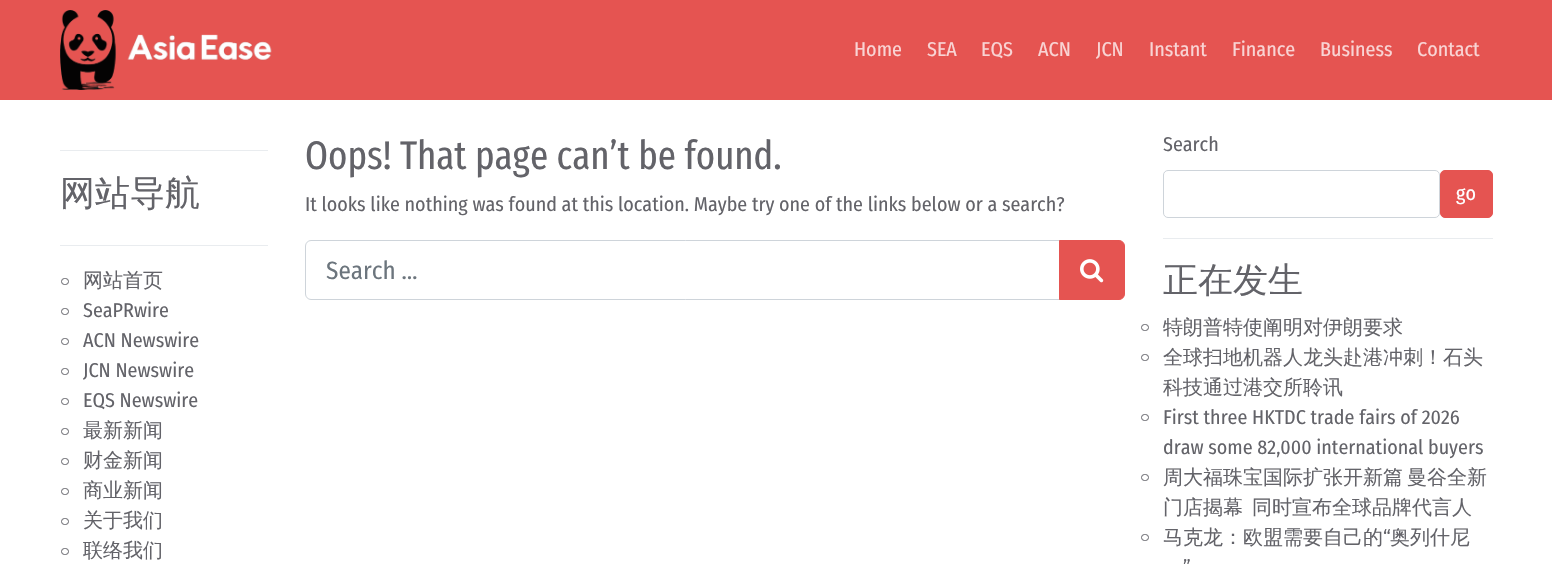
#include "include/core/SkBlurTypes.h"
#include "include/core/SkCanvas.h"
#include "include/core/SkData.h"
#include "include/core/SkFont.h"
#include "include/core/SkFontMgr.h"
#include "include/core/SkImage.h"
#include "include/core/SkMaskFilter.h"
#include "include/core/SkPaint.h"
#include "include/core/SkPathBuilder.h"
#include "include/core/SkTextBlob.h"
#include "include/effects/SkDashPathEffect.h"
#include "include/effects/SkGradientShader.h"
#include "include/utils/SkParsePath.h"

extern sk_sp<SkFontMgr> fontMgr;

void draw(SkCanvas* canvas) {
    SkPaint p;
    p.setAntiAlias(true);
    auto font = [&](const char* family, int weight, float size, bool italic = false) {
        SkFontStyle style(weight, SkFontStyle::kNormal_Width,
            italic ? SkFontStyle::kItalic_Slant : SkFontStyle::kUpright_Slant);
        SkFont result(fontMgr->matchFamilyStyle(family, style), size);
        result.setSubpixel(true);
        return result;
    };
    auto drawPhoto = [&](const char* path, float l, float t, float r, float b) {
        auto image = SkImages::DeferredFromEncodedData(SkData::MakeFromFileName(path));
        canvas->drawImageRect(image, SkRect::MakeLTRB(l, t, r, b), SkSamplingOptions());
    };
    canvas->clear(0xFFFFFFFF);
    p.setColor(0xFFE55451);
    canvas->drawRect(SkRect::MakeLTRB(0, 0, 1552, 100), p);
    drawPhoto("media/1.png", 60, 10, 272, 90);
    auto font1 = font("Fira Sans Condensed", 400, 20);
    p.setColor(0xFFF9D4D4);
    {
        const struct { const char* s; float x, y; } items[] = {
            {"Home", 854, 56},
            {"SEA", 927, 56},
            {"EQS", 981, 56},
            {"ACN", 1038, 56},
            {"JCN", 1096, 56},
            {"Instant", 1149, 56},
            {"Finance", 1232, 56},
            {"Business", 1320, 56},
            {"Contact", 1417, 56},
        };
        for (auto [s, x, y] : items) {
            canvas->drawString(s, x, y, font1, p);
        }
    }
    p.setColor(0xFFE9ECEF);
    canvas->drawRect(SkRect::MakeLTRB(60, 150, 268, 151), p);
    canvas->drawRect(SkRect::MakeLTRB(60, 245, 268, 246), p);
    auto font2 = font("WenQuanYi Zen Hei", 500, 35);
    p.setColor(0xFF636369);
    canvas->drawString("网站导航", 60, 205, font2, p);
    p.setStyle(SkPaint::kStroke_Style);
    p.setStrokeWidth(1);
    canvas->drawRoundRect(SkRect::MakeLTRB(61.5f, 278.5f, 68.5f, 284.5f), 3, 3, p);
    auto font3 = font("WenQuanYi Zen Hei", 500, 20);
    p.setStyle(SkPaint::kFill_Style);
    canvas->drawString("网站首页", 83, 287, font3, p);
    p.setStyle(SkPaint::kStroke_Style);
    canvas->drawRoundRect(SkRect::MakeLTRB(61.5f, 308.5f, 68.5f, 314.5f), 3, 3, p);
    p.setStyle(SkPaint::kFill_Style);
    canvas->drawString("SeaPRwire", 83, 317, font1, p);
    p.setStyle(SkPaint::kStroke_Style);
    canvas->drawRoundRect(SkRect::MakeLTRB(61.5f, 338.5f, 68.5f, 344.5f), 3, 3, p);
    p.setStyle(SkPaint::kFill_Style);
    canvas->drawString("ACN Newswire", 83, 347, font1, p);
    p.setStyle(SkPaint::kStroke_Style);
    canvas->drawRoundRect(SkRect::MakeLTRB(61.5f, 368.5f, 68.5f, 374.5f), 3, 3, p);
    p.setStyle(SkPaint::kFill_Style);
    canvas->drawString("JCN Newswire", 83, 377, font1, p);
    p.setStyle(SkPaint::kStroke_Style);
    canvas->drawRoundRect(SkRect::MakeLTRB(61.5f, 398.5f, 68.5f, 404.5f), 3, 3, p);
    p.setStyle(SkPaint::kFill_Style);
    canvas->drawString("EQS Newswire", 83, 407, font1, p);
    p.setStyle(SkPaint::kStroke_Style);
    canvas->drawRoundRect(SkRect::MakeLTRB(61.5f, 428.5f, 68.5f, 434.5f), 3, 3, p);
    p.setStyle(SkPaint::kFill_Style);
    canvas->drawString("最新新闻", 83, 437, font3, p);
    p.setStyle(SkPaint::kStroke_Style);
    canvas->drawRoundRect(SkRect::MakeLTRB(61.5f, 458.5f, 68.5f, 464.5f), 3, 3, p);
    p.setStyle(SkPaint::kFill_Style);
    canvas->drawString("财金新闻", 83, 467, font3, p);
    p.setStyle(SkPaint::kStroke_Style);
    canvas->drawRoundRect(SkRect::MakeLTRB(61.5f, 488.5f, 68.5f, 494.5f), 3, 3, p);
    p.setStyle(SkPaint::kFill_Style);
    canvas->drawString("商业新闻", 83, 497, font3, p);
    p.setStyle(SkPaint::kStroke_Style);
    canvas->drawRoundRect(SkRect::MakeLTRB(61.5f, 518.5f, 68.5f, 524.5f), 3, 3, p);
    p.setStyle(SkPaint::kFill_Style);
    canvas->drawString("关于我们", 83, 527, font3, p);
    p.setStyle(SkPaint::kStroke_Style);
    canvas->drawRoundRect(SkRect::MakeLTRB(61.5f, 548.5f, 68.5f, 554.5f), 3, 3, p);
    p.setStyle(SkPaint::kFill_Style);
    canvas->drawString("联络我们", 83, 557, font3, p);
    auto font4 = font("Fira Sans Extra Condensed", 400, 40);
    canvas->drawString("Oops! That page can’t be found.", 305, 169, font4, p);
    canvas->drawString("It looks like nothing was found at this location. Maybe try one of the links below or a search?", 305, 211, font1, p);
    p.setStyle(SkPaint::kStroke_Style);
    p.setColor(0xFFCED4DA);
    canvas->drawPath(SkPathBuilder().moveTo(311, 240.5f).lineTo(1059.5f, 240.5f).lineTo(1059.5f, 299.5f).lineTo(311, 299.5f).cubicTo(308, 299.5f, 305.5f, 297, 305.5f, 294).lineTo(305.5f, 246).cubicTo(305.5f, 243, 308, 240.5f, 311, 240.5f).close().detach(), p);
    auto font5 = font("Fira Sans Condensed", 400, 25);
    p.setStyle(SkPaint::kFill_Style);
    p.setColor(0xFF6C757D);
    canvas->drawString("Search …", 326, 279, font5, p);
    p.setColor(0xFFE55451);
    canvas->drawPath(SkPathBuilder().moveTo(1059.5f, 240.5f).lineTo(1119, 240.5f).cubicTo(1122, 240.5f, 1124.5f, 243, 1124.5f, 246).lineTo(1124.5f, 294).cubicTo(1124.5f, 297, 1122, 299.5f, 1119, 299.5f).lineTo(1059.5f, 299.5f).close().detach(), p);
    p.setStyle(SkPaint::kStroke_Style);
    canvas->drawPath(SkPathBuilder().moveTo(1059.5f, 240.5f).lineTo(1119, 240.5f).cubicTo(1122, 240.5f, 1124.5f, 243, 1124.5f, 246).lineTo(1124.5f, 294).cubicTo(1124.5f, 297, 1122, 299.5f, 1119, 299.5f).lineTo(1059.5f, 299.5f).close().detach(), p);
    drawPhoto("media/2.png", 1080, 259, 1104, 283);
    p.setStyle(SkPaint::kFill_Style);
    p.setColor(0xFFE9ECEF);
    canvas->drawRect(SkRect::MakeLTRB(1163, 238, 1493, 239), p);
    p.setColor(0xFF636369);
    canvas->drawString("Search", 1163, 151, font1, p);
    p.setStyle(SkPaint::kStroke_Style);
    p.setColor(0xFFCED4DA);
    canvas->drawRoundRect(SkRect::MakeLTRB(1163.5f, 170.5f, 1439.5f, 217.5f), 4.5f, 4.5f, p);
    p.setStyle(SkPaint::kFill_Style);
    p.setColor(0xFFE55451);
    canvas->drawRoundRect(SkRect::MakeLTRB(1440.5f, 170.5f, 1492.5f, 217.5f), 4.5f, 4.5f, p);
    p.setStyle(SkPaint::kStroke_Style);
    canvas->drawRoundRect(SkRect::MakeLTRB(1440.5f, 170.5f, 1492.5f, 217.5f), 4.5f, 4.5f, p);
    p.setStyle(SkPaint::kFill_Style);
    p.setColor(0xFFFFFFFF);
    canvas->drawString("go", 1456, 200, font1, p);
    p.setColor(0xFF636369);
    canvas->drawString("正在发生", 1163, 292, font2, p);
    p.setStyle(SkPaint::kStroke_Style);
    canvas->drawRoundRect(SkRect::MakeLTRB(1141.5f, 324.5f, 1148.5f, 330.5f), 3, 3, p);
    p.setStyle(SkPaint::kFill_Style);
    canvas->drawString("特朗普特使阐明对伊朗要求", 1163, 334, font3, p);
    p.setStyle(SkPaint::kStroke_Style);
    canvas->drawRoundRect(SkRect::MakeLTRB(1141.5f, 354.5f, 1148.5f, 360.5f), 3, 3, p);
    p.setStyle(SkPaint::kFill_Style);
    canvas->drawString("全球扫地机器人龙头赴港冲刺！石头", 1163, 364, font3, p);
    canvas->drawString("科技通过港交所聆讯", 1163, 394, font3, p);
    p.setStyle(SkPaint::kStroke_Style);
    canvas->drawRoundRect(SkRect::MakeLTRB(1141.5f, 414.5f, 1148.5f, 420.5f), 3, 3, p);
    p.setStyle(SkPaint::kFill_Style);
    canvas->drawString("First three HKTDC trade fairs of 2026", 1163, 424, font1, p);
    canvas->drawString("draw some 82,000 international buyers", 1163, 454, font1, p);
    p.setStyle(SkPaint::kStroke_Style);
    canvas->drawRoundRect(SkRect::MakeLTRB(1141.5f, 474.5f, 1148.5f, 480.5f), 3, 3, p);
    p.setStyle(SkPaint::kFill_Style);
    {
        const struct { const char* s; float x, y; } items[] = {
            {"周大福珠宝国际扩张开新篇", 1163, 484},
            {"曼谷全新", 1407, 484},
            {"门店揭幕", 1163, 514},
            {"同时宣布全球品牌代言人", 1252, 514},
            {"马克龙：欧盟需要自己的", 1163, 544},
        };
        for (auto [s, x, y] : items) {
            canvas->drawString(s, x, y, font3, p);
        }
    }
    canvas->drawString("“", 1383, 544, font1, p);
    canvas->drawString("奥列什尼", 1390, 544, font3, p);
    p.setStyle(SkPaint::kStroke_Style);
    canvas->drawRoundRect(SkRect::MakeLTRB(1141.5f, 534.5f, 1148.5f, 540.5f), 3, 3, p);
    p.setStyle(SkPaint::kFill_Style);
    canvas->drawString("”", 1183, 574, font1, p);
}
